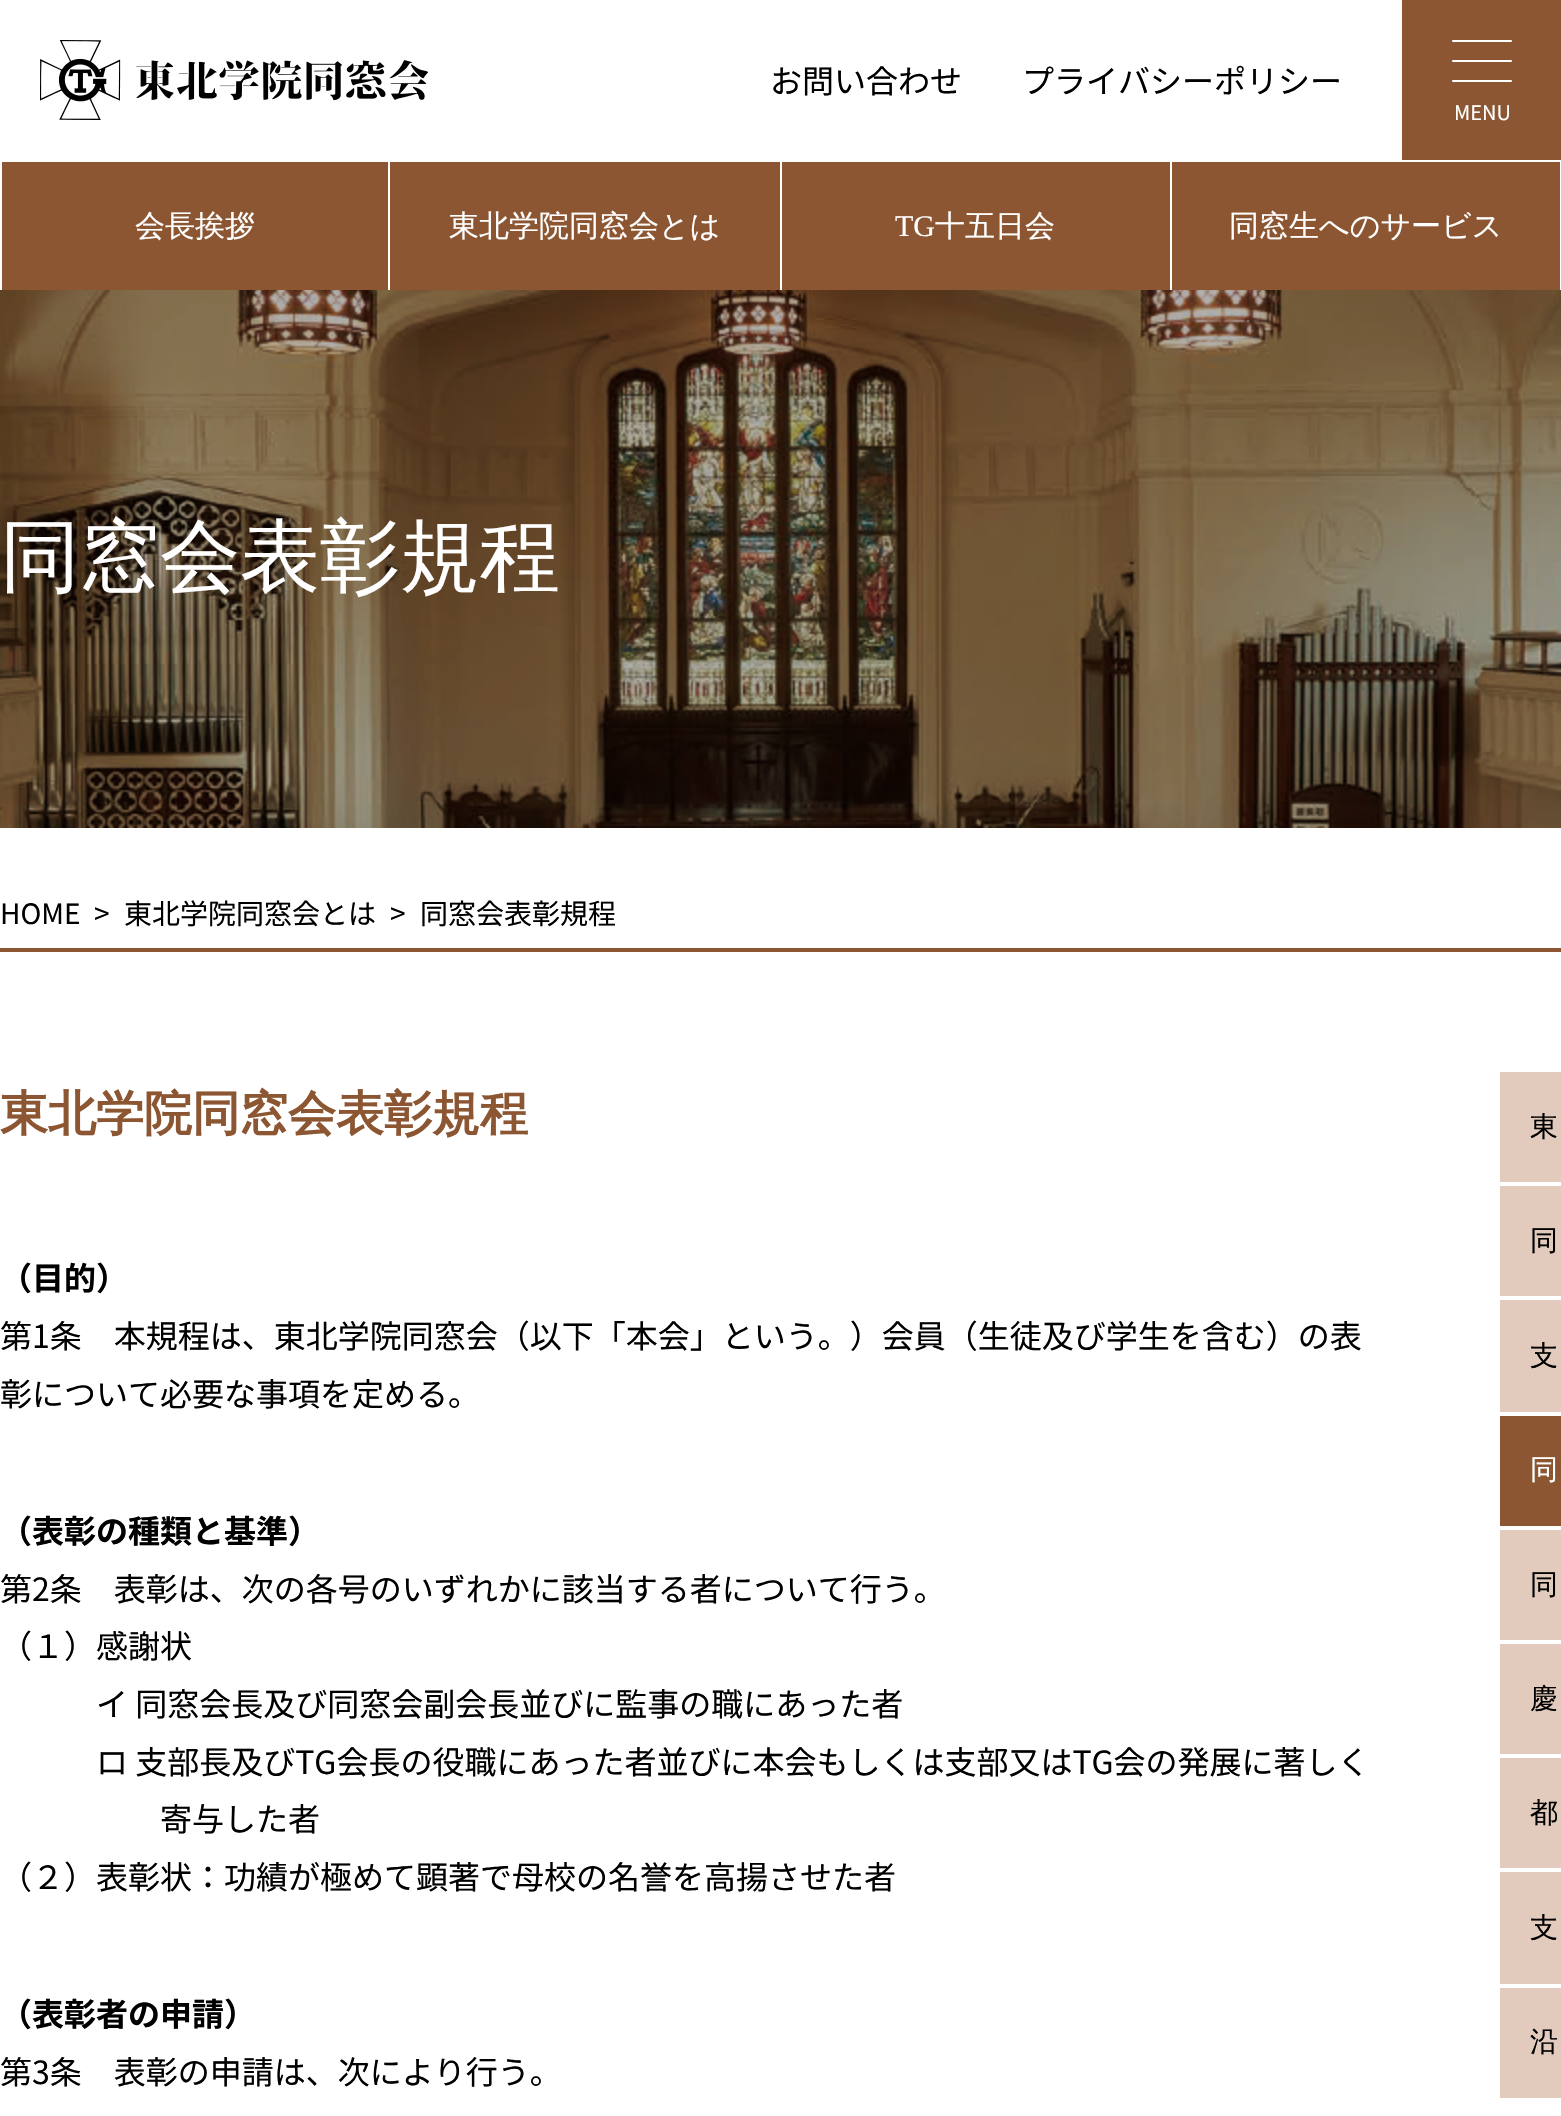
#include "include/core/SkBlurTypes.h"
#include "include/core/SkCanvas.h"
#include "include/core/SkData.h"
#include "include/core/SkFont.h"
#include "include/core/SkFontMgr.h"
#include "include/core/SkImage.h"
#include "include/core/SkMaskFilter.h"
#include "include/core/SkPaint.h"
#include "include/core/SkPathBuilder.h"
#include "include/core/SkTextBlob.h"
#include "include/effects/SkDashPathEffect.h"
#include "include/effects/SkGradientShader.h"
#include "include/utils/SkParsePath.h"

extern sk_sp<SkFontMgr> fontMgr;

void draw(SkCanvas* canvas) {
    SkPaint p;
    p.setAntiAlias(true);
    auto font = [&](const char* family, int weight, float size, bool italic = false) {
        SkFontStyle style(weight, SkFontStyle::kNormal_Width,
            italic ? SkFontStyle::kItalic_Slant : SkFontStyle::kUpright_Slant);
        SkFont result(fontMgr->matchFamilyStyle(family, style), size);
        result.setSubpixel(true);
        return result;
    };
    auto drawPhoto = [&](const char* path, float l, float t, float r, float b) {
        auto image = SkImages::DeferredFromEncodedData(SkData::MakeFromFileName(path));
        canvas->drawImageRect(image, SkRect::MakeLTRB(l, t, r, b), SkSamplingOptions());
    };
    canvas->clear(0xFFFFFFFF);
    drawPhoto("media/1.png", 40, 40, 428, 120);
    auto font1 = font("Noto Sans CJK JP", 400, 32);
    p.setColor(0xFF000000);
    canvas->drawString("お問い合わせ", 770, 93, font1, p);
    canvas->drawString("プライバシーポリシー", 1022, 93, font1, p);
    p.setColor(0xFF8C5632);
    canvas->drawRect(SkRect::MakeLTRB(1402, 0, 1561, 160), p);
    p.setColor(0xFFFFFFFF);
    canvas->drawRoundRect(SkRect::MakeLTRB(1452, 60, 1512, 62), 1, 1, p);
    canvas->drawRoundRect(SkRect::MakeLTRB(1452, 40, 1512, 42), 1, 1, p);
    canvas->drawRoundRect(SkRect::MakeLTRB(1452, 80, 1512, 82), 1, 1, p);
    auto font2 = font("Noto Sans CJK JP", 400, 20);
    canvas->drawString("MENU", 1454, 120, font2, p);
    drawPhoto("media/2.png", 0, 290, 1561, 828);
    p.setColor(0xFF8C5632);
    canvas->drawRect(SkRect::MakeLTRB(2, 162, 1560, 290), p);
    p.setColor(0xFFFFFFFF);
    canvas->drawRect(SkRect::MakeLTRB(388, 162, 390, 290), p);
    auto font3 = font("WenQuanYi Zen Hei", 500, 30);
    canvas->drawString("会長挨拶", 135, 236, font3, p);
    canvas->drawRect(SkRect::MakeLTRB(780, 162, 782, 290), p);
    canvas->drawString("東北学院同窓会とは", 449, 236, font3, p);
    canvas->drawRect(SkRect::MakeLTRB(1170, 162, 1172, 290), p);
    auto font4 = font("Liberation Serif", 400, 30);
    canvas->drawString("TG", 895, 236, font4, p);
    canvas->drawString("十五日会", 935, 236, font3, p);
    canvas->drawString("同窓生へのサービス", 1229, 236, font3, p);
    auto font5 = font("WenQuanYi Zen Hei", 500, 80);
    canvas->drawString("同窓会表彰規程", 0, 584, font5, p);
    p.setColor(0xFF8C5632);
    canvas->drawRect(SkRect::MakeLTRB(0, 948, 1561, 952), p);
    auto font6 = font("Noto Sans CJK JP", 400, 28);
    p.setColor(0xFF000000);
    {
        const struct { const char* s; float x, y; } items[] = {
            {"HOME", 0, 924},
            {">", 94, 924},
            {"東北学院同窓会とは", 124, 924},
            {">", 390, 924},
            {"同窓会表彰規程", 420, 924},
        };
        for (auto [s, x, y] : items) {
            canvas->drawString(s, x, y, font6, p);
        }
    }
    auto font7 = font("WenQuanYi Zen Hei", 700, 48);
    p.setColor(0xFF8C5632);
    canvas->drawString("東北学院同窓会表彰規程", 0, 1130, font7, p);
    auto font8 = font("Noto Sans CJK JP", 700, 32);
    p.setColor(0xFF000000);
    canvas->drawString("（目的）", 0, 1290, font8, p);
    canvas->drawString("第1条　本規程は、東北学院同窓会（以下「本会」という。）会員（生徒及び学生を含む）の表", 0, 1348, font1, p);
    canvas->drawString("彰について必要な事項を定める。", 0, 1406, font1, p);
    canvas->drawString("（表彰の種類と基準）", 0, 1543, font8, p);
    {
        const struct { const char* s; float x, y; } items[] = {
            {"第2条　表彰は、次の各号のいずれかに該当する者について行う。", 0, 1601},
            {"（１）感謝状", 0, 1658},
            {"イ 同窓会長及び同窓会副会長並びに監事の職にあった者", 96, 1716},
            {"ロ 支部長及びTG会長の役職にあった者並びに本会もしくは支部又はTG会の発展に著しく", 96, 1774},
            {"寄与した者", 160, 1831},
            {"（２）表彰状：功績が極めて顕著で母校の名誉を高揚させた者", 0, 1889},
        };
        for (auto [s, x, y] : items) {
            canvas->drawString(s, x, y, font1, p);
        }
    }
    canvas->drawString("（表彰者の申請）", 0, 2026, font8, p);
    canvas->drawString("第3条　表彰の申請は、次により行う。", 0, 2084, font1, p);
    p.setColor(0xFFE2CBBC);
    canvas->drawRect(SkRect::MakeLTRB(1500, 1072, 1561, 1182), p);
    auto font9 = font("WenQuanYi Zen Hei", 500, 28);
    p.setColor(0xFF000000);
    canvas->drawString("東", 1530, 1136, font9, p);
    p.setColor(0xFFE2CBBC);
    canvas->drawRect(SkRect::MakeLTRB(1500, 1186, 1561, 1296), p);
    p.setColor(0xFF000000);
    canvas->drawString("同", 1530, 1250, font9, p);
    p.setColor(0xFFE2CBBC);
    canvas->drawRect(SkRect::MakeLTRB(1500, 1300, 1561, 1412), p);
    p.setColor(0xFF000000);
    canvas->drawString("支", 1530, 1365, font9, p);
    p.setColor(0xFF8C5632);
    canvas->drawRect(SkRect::MakeLTRB(1500, 1416, 1561, 1526), p);
    p.setColor(0xFFFFFFFF);
    canvas->drawString("同", 1530, 1479, font9, p);
    p.setColor(0xFFE2CBBC);
    canvas->drawRect(SkRect::MakeLTRB(1500, 1530, 1561, 1640), p);
    p.setColor(0xFF000000);
    canvas->drawString("同", 1530, 1594, font9, p);
    p.setColor(0xFFE2CBBC);
    canvas->drawRect(SkRect::MakeLTRB(1500, 1644, 1561, 1754), p);
    p.setColor(0xFF000000);
    canvas->drawString("慶", 1530, 1708, font9, p);
    p.setColor(0xFFE2CBBC);
    canvas->drawRect(SkRect::MakeLTRB(1500, 1758, 1561, 1868), p);
    p.setColor(0xFF000000);
    canvas->drawString("都", 1530, 1822, font9, p);
    p.setColor(0xFFE2CBBC);
    canvas->drawRect(SkRect::MakeLTRB(1500, 1872, 1561, 1984), p);
    p.setColor(0xFF000000);
    canvas->drawString("支", 1530, 1937, font9, p);
    p.setColor(0xFFE2CBBC);
    canvas->drawRect(SkRect::MakeLTRB(1500, 1988, 1561, 2098), p);
    p.setColor(0xFF000000);
    canvas->drawString("沿", 1530, 2051, font9, p);
}
